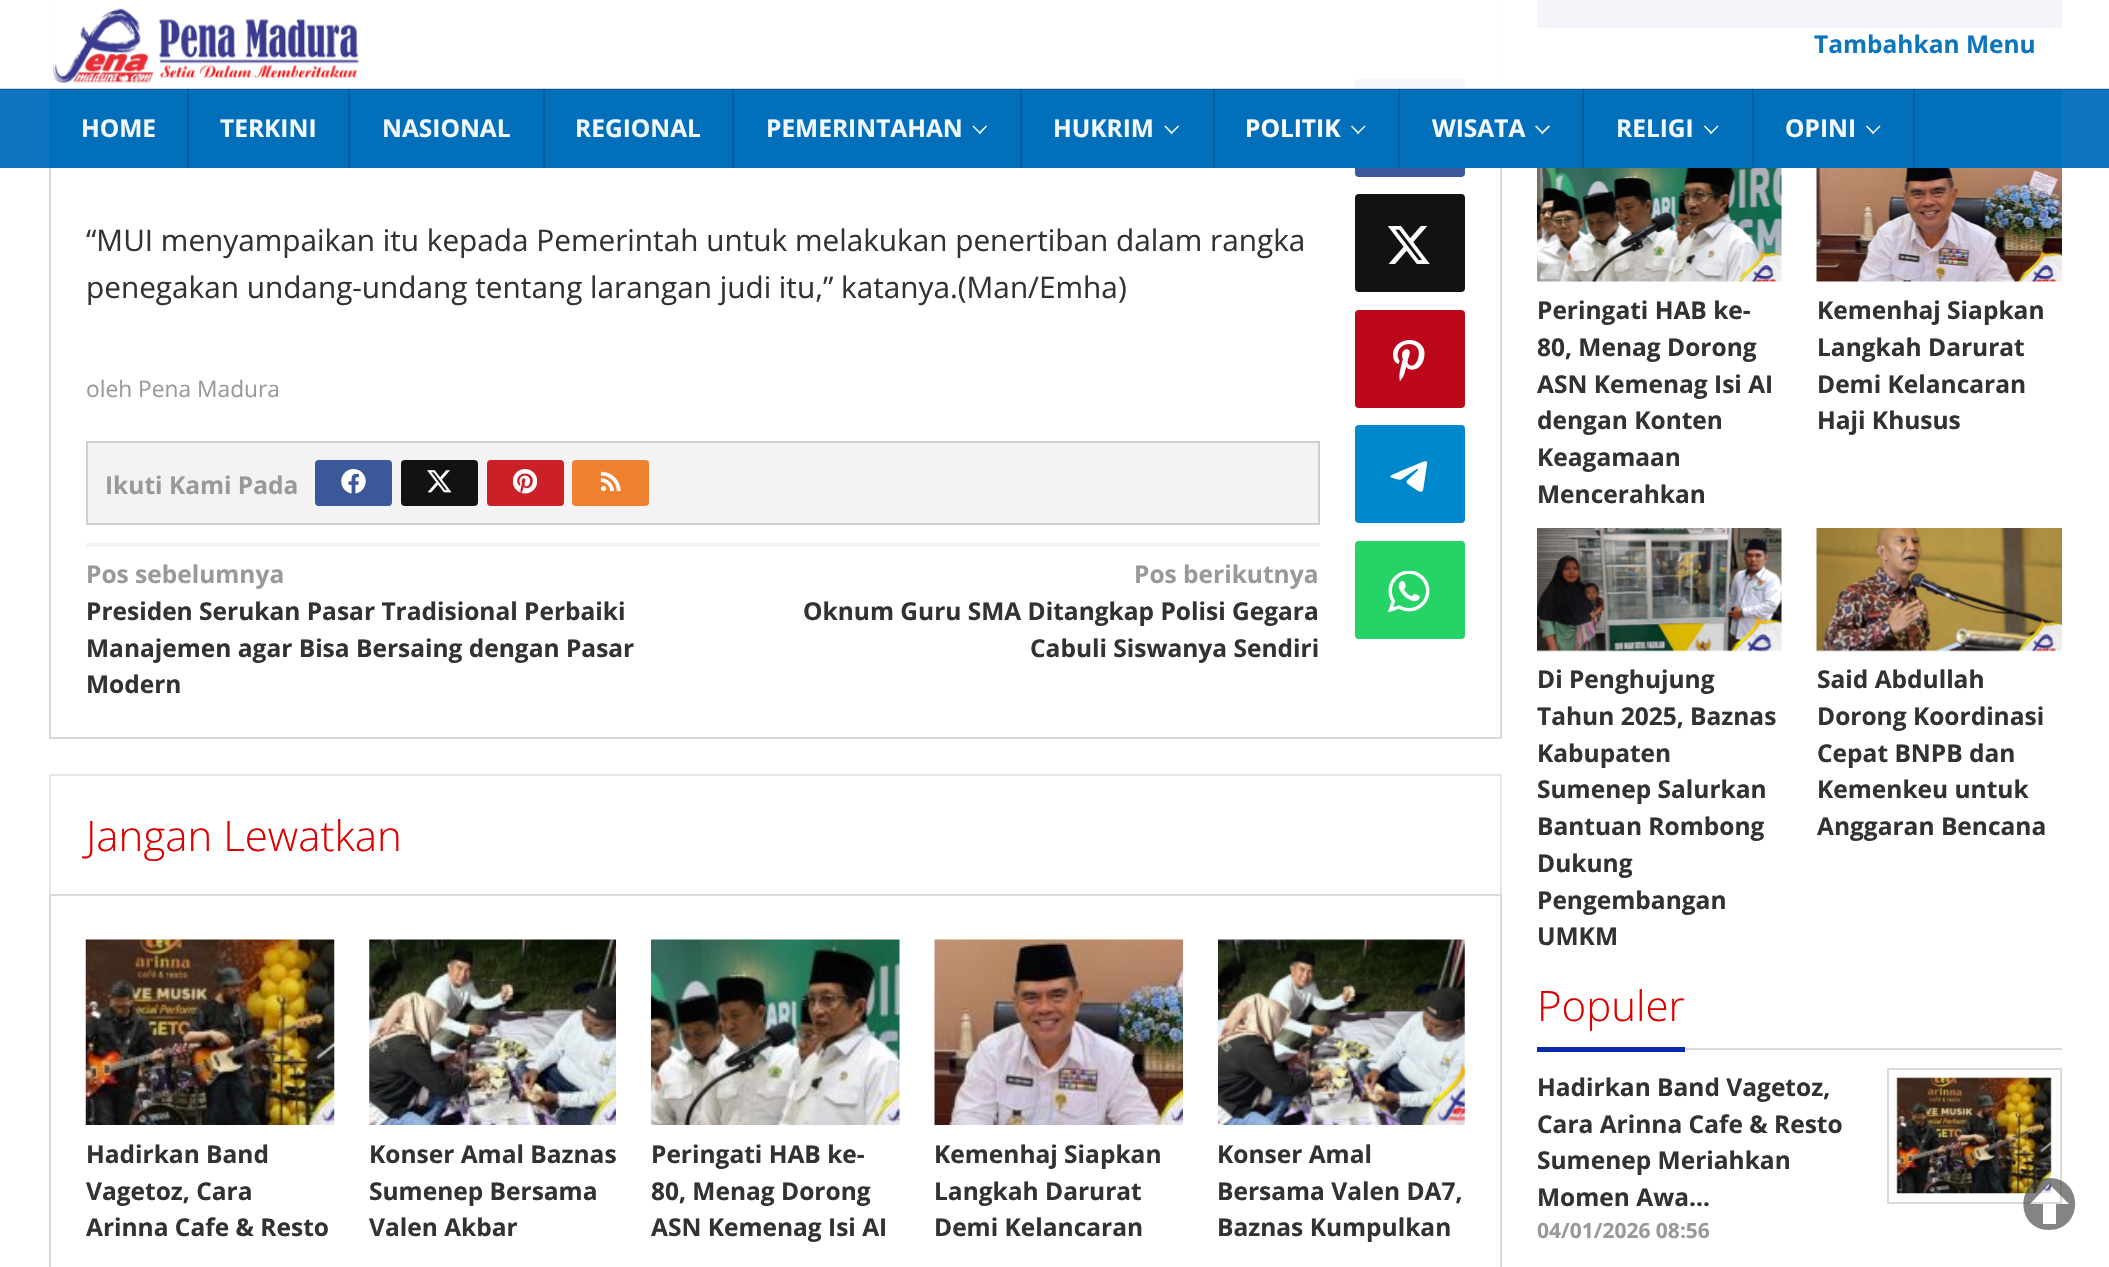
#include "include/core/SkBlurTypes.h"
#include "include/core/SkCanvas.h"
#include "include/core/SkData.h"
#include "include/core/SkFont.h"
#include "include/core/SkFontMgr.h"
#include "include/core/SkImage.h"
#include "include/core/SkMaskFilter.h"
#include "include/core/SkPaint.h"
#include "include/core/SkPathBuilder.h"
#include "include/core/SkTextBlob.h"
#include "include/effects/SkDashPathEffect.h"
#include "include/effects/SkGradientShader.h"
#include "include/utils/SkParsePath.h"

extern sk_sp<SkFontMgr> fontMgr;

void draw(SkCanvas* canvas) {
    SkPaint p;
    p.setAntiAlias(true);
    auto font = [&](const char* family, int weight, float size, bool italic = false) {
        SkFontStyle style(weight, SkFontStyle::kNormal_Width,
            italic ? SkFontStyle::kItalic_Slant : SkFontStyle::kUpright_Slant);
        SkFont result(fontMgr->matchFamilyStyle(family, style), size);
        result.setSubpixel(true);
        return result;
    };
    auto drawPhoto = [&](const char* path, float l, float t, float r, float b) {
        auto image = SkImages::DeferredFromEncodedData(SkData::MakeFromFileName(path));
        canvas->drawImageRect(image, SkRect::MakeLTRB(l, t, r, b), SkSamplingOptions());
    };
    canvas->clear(0xFFFFFFFF);
    p.setStyle(SkPaint::kStroke_Style);
    p.setStrokeWidth(2);
    p.setColor(0xFFD9D9D9);
    canvas->drawRect(SkRect::MakeLTRB(50, -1, 1501, 738), p);
    p.setStyle(SkPaint::kFill_Style);
    p.setColor(0xFF3B5998);
    canvas->drawRoundRect(SkRect::MakeLTRB(1355, 79, 1465, 177), 4, 4, p);
    drawPhoto("media/6.png", 1400, 109, 1419, 151);
    p.setColor(0xFFD9D9D9);
    canvas->drawRect(SkRect::MakeLTRB(1804, 149, 2062, 151), p);
    p.setColor(0xFF0C29AD);
    canvas->drawRect(SkRect::MakeLTRB(1537, 147, 1804, 152), p);
    drawPhoto("media/16.png", 1537, 159, 1782, 282);
    drawPhoto("media/17.png", 1816, 159, 2062, 282);
    {
        const struct { float l, t, r, b; SkColor color; } items[] = {
            {0, 88, 2109, 168, 0xF2016FBA},
            {49, 88, 2062, 168, 0xF2016FBA},
            {187, 88, 189, 168, 0xFF015FA0},
            {348, 88, 350, 168, 0xFF015FA0},
            {543, 88, 545, 168, 0xFF015FA0},
            {732, 88, 734, 168, 0xFF015FA0},
            {1020, 88, 1022, 168, 0xFF015FA0},
            {1213, 88, 1215, 168, 0xFF0361A0},
            {1398, 88, 1400, 168, 0xFF015F9F},
            {1582, 88, 1584, 168, 0xFF015FA0},
            {1752, 88, 1754, 168, 0xFF015FA0},
            {1913, 88, 1915, 168, 0xFF015FA0},
            {1537, 0, 2062, 26, 0xFF0C29AD},
            {1537, 26, 2062, 28, 0xFF0A2393},
            {0, 0, 2109, 89, 0xF2FFFFFF},
            {0, 88, 2109, 90, 0x24000000},
        };
        for (auto [l, t, r, b, color] : items) {
            p.setColor(color);
            canvas->drawRect(SkRect::MakeLTRB(l, t, r, b), p);
        }
    }
    drawPhoto("media/1.png", 52, 8, 359, 84);
    auto font1 = font("Open Sans", 700, 24.5f);
    p.setColor(0xFF0E76BD);
    canvas->drawString("Tambahkan Menu", 1814, 53, font1, p);
    p.setColor(0xFFF2F8FC);
    {
        const struct { const char* s; float x, y; } items[] = {
            {"HOME", 81, 137},
            {"TERKINI", 220, 137},
            {"NASIONAL", 382, 137},
            {"REGIONAL", 575, 137},
            {"PEMERINTAHAN", 766, 137},
        };
        for (auto [s, x, y] : items) {
            canvas->drawString(s, x, y, font1, p);
        }
    }
    p.setColor(0xFFFFFFFF);
    canvas->drawPath(SkPathBuilder().moveTo(986, 125.5f).lineTo(987, 126.5f).lineTo(980, 134).lineTo(978.5f, 133).close().detach(), p);
    canvas->drawPath(SkPathBuilder().moveTo(973.5f, 125.5f).lineTo(981, 133).lineTo(980, 134).lineTo(972.5f, 126.5f).close().detach(), p);
    p.setColor(0xFFF2F8FC);
    canvas->drawString("HUKRIM", 1053, 137, font1, p);
    p.setColor(0xFFFFFFFF);
    canvas->drawPath(SkPathBuilder().moveTo(1178, 125.5f).lineTo(1179, 126.5f).lineTo(1171.5f, 134).lineTo(1170.5f, 133).close().detach(), p);
    canvas->drawPath(SkPathBuilder().moveTo(1165.5f, 125.5f).lineTo(1173, 133).lineTo(1171.5f, 134).lineTo(1164.5f, 126.5f).close().detach(), p);
    canvas->drawString("POLITIK", 1245, 137, font1, p);
    p.setColor(0xFFF5F7FA);
    canvas->drawPath(SkPathBuilder().moveTo(1364.5f, 125.5f).lineTo(1365.5f, 126.5f).lineTo(1358, 134).lineTo(1357, 133).close().detach(), p);
    p.setColor(0xF2FFFFFF);
    canvas->drawPath(SkPathBuilder().moveTo(1352, 125.5f).lineTo(1359.5f, 133).lineTo(1358, 134).lineTo(1351, 126.5f).close().detach(), p);
    p.setColor(0xFFF2F8FC);
    canvas->drawString("WISATA", 1432, 137, font1, p);
    p.setColor(0xFFFFFFFF);
    canvas->drawPath(SkPathBuilder().moveTo(1548.5f, 125.5f).lineTo(1550, 126.5f).lineTo(1542.5f, 134).lineTo(1541, 133).close().detach(), p);
    canvas->drawPath(SkPathBuilder().moveTo(1536.5f, 125.5f).lineTo(1543.5f, 133).lineTo(1542.5f, 134).lineTo(1535, 126.5f).close().detach(), p);
    p.setColor(0xFFF2F8FC);
    canvas->drawString("RELIGI", 1616, 137, font1, p);
    p.setColor(0xFFFFFFFF);
    canvas->drawPath(SkPathBuilder().moveTo(1717.5f, 125.5f).lineTo(1718.5f, 126.5f).lineTo(1711, 134).lineTo(1710, 133).close().detach(), p);
    canvas->drawPath(SkPathBuilder().moveTo(1705, 125.5f).lineTo(1712.5f, 133).lineTo(1711, 134).lineTo(1704, 126.5f).close().detach(), p);
    p.setColor(0xFFF2F8FC);
    canvas->drawString("OPINI", 1785, 137, font1, p);
    p.setColor(0xFFFFFFFF);
    canvas->drawPath(SkPathBuilder().moveTo(1879.5f, 125.5f).lineTo(1880.5f, 126.5f).lineTo(1873, 134).lineTo(1872, 133).close().detach(), p);
    canvas->drawPath(SkPathBuilder().moveTo(1867, 125.5f).lineTo(1874.5f, 133).lineTo(1873, 134).lineTo(1866, 126.5f).close().detach(), p);
    auto font2 = font("Open Sans", 400, 29.75f);
    p.setColor(0xFF323233);
    canvas->drawString("“MUI menyampaikan itu kepada Pemerintah untuk melakukan penertiban dalam rangka", 86, 251, font2, p);
    canvas->drawString("penegakan undang-undang tentang larangan judi itu,” katanya.(Man/Emha)", 86, 298, font2, p);
    auto font3 = font("Open Sans", 400, 22.75f);
    p.setColor(0xFF999999);
    canvas->drawString("oleh Pena Madura", 86, 397, font3, p);
    p.setColor(0xFFF3F3F3);
    canvas->drawRect(SkRect::MakeLTRB(87, 442, 1319, 524), p);
    p.setStyle(SkPaint::kStroke_Style);
    p.setColor(0xFFCFCFCF);
    canvas->drawRect(SkRect::MakeLTRB(87, 442, 1319, 524), p);
    p.setStyle(SkPaint::kFill_Style);
    p.setColor(0xFF999999);
    canvas->drawString("Ikuti Kami Pada", 105, 494, font1, p);
    p.setColor(0xFF3B5998);
    canvas->drawRoundRect(SkRect::MakeLTRB(315, 460, 392, 506), 4, 4, p);
    drawPhoto("media/2.png", 341, 469, 366, 494);
    p.setColor(0xFF121212);
    canvas->drawRoundRect(SkRect::MakeLTRB(401, 460, 478, 506), 4, 4, p);
    drawPhoto("media/3.png", 427, 470, 452, 493);
    p.setColor(0xFFCB2027);
    canvas->drawRoundRect(SkRect::MakeLTRB(487, 460, 564, 506), 4, 4, p);
    drawPhoto("media/4.png", 513, 469, 537, 494);
    p.setColor(0xFFEE802F);
    canvas->drawRoundRect(SkRect::MakeLTRB(572, 460, 649, 506), 4, 4, p);
    drawPhoto("media/5.png", 600, 471, 621, 492);
    p.setColor(0xFFF6F4F1);
    canvas->drawRect(SkRect::MakeLTRB(86, 543, 1320, 547), p);
    p.setColor(0xFF999999);
    canvas->drawString("Pos sebelumnya", 86, 583, font1, p);
    p.setColor(0xFF323233);
    {
        const struct { const char* s; float x, y; } items[] = {
            {"Presiden Serukan Pasar Tradisional Perbaiki", 86, 620},
            {"Manajemen agar Bisa Bersaing dengan Pasar", 86, 657},
            {"Modern", 86, 693},
        };
        for (auto [s, x, y] : items) {
            canvas->drawString(s, x, y, font1, p);
        }
    }
    p.setColor(0xFF999999);
    canvas->drawString("Pos berikutnya", 1134, 583, font1, p);
    p.setColor(0xFF323233);
    canvas->drawString("Oknum Guru SMA Ditangkap Polisi Gegara", 803, 620, font1, p);
    canvas->drawString("Cabuli Siswanya Sendiri", 1030, 657, font1, p);
    p.setColor(0xFF121212);
    canvas->drawRoundRect(SkRect::MakeLTRB(1355, 194, 1465, 292), 4, 4, p);
    drawPhoto("media/7.png", 1388, 226, 1430, 264);
    p.setColor(0xFFBD081C);
    canvas->drawRoundRect(SkRect::MakeLTRB(1355, 310, 1465, 408), 4, 4, p);
    drawPhoto("media/8.png", 1393, 340, 1425, 381);
    p.setColor(0xFF0088CC);
    canvas->drawRoundRect(SkRect::MakeLTRB(1355, 425, 1465, 523), 4, 4, p);
    drawPhoto("media/9.png", 1390, 461, 1428, 492);
    p.setColor(0xFF25D366);
    canvas->drawRoundRect(SkRect::MakeLTRB(1355, 541, 1465, 639), 4, 4, p);
    drawPhoto("media/10.png", 1388, 571, 1430, 613);
    p.setStyle(SkPaint::kStroke_Style);
    p.setColor(0xFFE6E6E6);
    canvas->drawRect(SkRect::MakeLTRB(50, 775, 1501, 895), p);
    auto font4 = font("Open Sans", 300, 42);
    p.setStyle(SkPaint::kFill_Style);
    p.setColor(0xFFDD0000);
    canvas->drawString("Jangan Lewatkan", 86, 851, font4, p);
    p.setStyle(SkPaint::kStroke_Style);
    p.setColor(0xFFD9D9D9);
    canvas->drawRect(SkRect::MakeLTRB(50, 895, 1501, 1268), p);
    drawPhoto("media/11.png", 85, 939, 335, 1125);
    p.setStyle(SkPaint::kFill_Style);
    p.setColor(0xFF323233);
    {
        const struct { const char* s; float x, y; } items[] = {
            {"Hadirkan Band", 86, 1163},
            {"Vagetoz, Cara", 86, 1200},
            {"Arinna Cafe & Resto", 86, 1236},
        };
        for (auto [s, x, y] : items) {
            canvas->drawString(s, x, y, font1, p);
        }
    }
    drawPhoto("media/12.png", 369, 939, 616, 1125);
    {
        const struct { const char* s; float x, y; } items[] = {
            {"Konser Amal Baznas", 369, 1163},
            {"Sumenep Bersama", 369, 1200},
            {"Valen Akbar", 369, 1236},
        };
        for (auto [s, x, y] : items) {
            canvas->drawString(s, x, y, font1, p);
        }
    }
    drawPhoto("media/13.png", 651, 939, 900, 1125);
    {
        const struct { const char* s; float x, y; } items[] = {
            {"Peringati HAB ke-", 651, 1163},
            {"80, Menag Dorong", 651, 1200},
            {"ASN Kemenag Isi AI", 651, 1236},
        };
        for (auto [s, x, y] : items) {
            canvas->drawString(s, x, y, font1, p);
        }
    }
    drawPhoto("media/14.png", 934, 939, 1183, 1125);
    {
        const struct { const char* s; float x, y; } items[] = {
            {"Kemenhaj Siapkan", 934, 1163},
            {"Langkah Darurat", 934, 1200},
            {"Demi Kelancaran", 934, 1236},
        };
        for (auto [s, x, y] : items) {
            canvas->drawString(s, x, y, font1, p);
        }
    }
    drawPhoto("media/15.png", 1218, 939, 1465, 1125);
    {
        const struct { const char* s; float x, y; } items[] = {
            {"Konser Amal", 1217, 1163},
            {"Bersama Valen DA7,", 1217, 1200},
            {"Baznas Kumpulkan", 1217, 1236},
            {"Peringati HAB ke-", 1537, 319},
            {"80, Menag Dorong", 1537, 356},
            {"ASN Kemenag Isi AI", 1537, 393},
            {"dengan Konten", 1537, 429},
            {"Keagamaan", 1537, 466},
            {"Mencerahkan", 1537, 503},
            {"Kemenhaj Siapkan", 1817, 319},
            {"Langkah Darurat", 1817, 356},
            {"Demi Kelancaran", 1817, 393},
            {"Haji Khusus", 1817, 429},
        };
        for (auto [s, x, y] : items) {
            canvas->drawString(s, x, y, font1, p);
        }
    }
    drawPhoto("media/18.png", 1537, 528, 1782, 652);
    {
        const struct { const char* s; float x, y; } items[] = {
            {"Di Penghujung", 1537, 688},
            {"Tahun 2025, Baznas", 1537, 725},
            {"Kabupaten", 1537, 762},
            {"Sumenep Salurkan", 1537, 798},
            {"Bantuan Rombong", 1537, 835},
            {"Dukung", 1537, 872},
            {"Pengembangan", 1537, 909},
            {"UMKM", 1537, 945},
        };
        for (auto [s, x, y] : items) {
            canvas->drawString(s, x, y, font1, p);
        }
    }
    drawPhoto("media/19.png", 1816, 528, 2062, 652);
    {
        const struct { const char* s; float x, y; } items[] = {
            {"Said Abdullah", 1817, 688},
            {"Dorong Koordinasi", 1817, 725},
            {"Cepat BNPB dan", 1817, 762},
            {"Kemenkeu untuk", 1817, 798},
            {"Anggaran Bencana", 1817, 835},
        };
        for (auto [s, x, y] : items) {
            canvas->drawString(s, x, y, font1, p);
        }
    }
    p.setColor(0xFFD9D9D9);
    canvas->drawRect(SkRect::MakeLTRB(1685, 1048, 2062, 1050), p);
    p.setColor(0xFF0C29AD);
    canvas->drawRect(SkRect::MakeLTRB(1537, 1047, 1685, 1052), p);
    p.setColor(0xFFDD0000);
    canvas->drawString("Populer", 1537, 1021, font4, p);
    p.setColor(0xFF323233);
    canvas->drawString("Hadirkan Band Vagetoz,", 1537, 1096, font1, p);
    p.setStyle(SkPaint::kStroke_Style);
    p.setColor(0xFFD9D9D9);
    canvas->drawRect(SkRect::MakeLTRB(1888, 1069, 2061, 1203), p);
    drawPhoto("media/20.png", 1896, 1077, 2052, 1194);
    p.setStyle(SkPaint::kFill_Style);
    p.setColor(0xFF323233);
    {
        const struct { const char* s; float x, y; } items[] = {
            {"Cara Arinna Cafe & Resto", 1537, 1133},
            {"Sumenep Meriahkan", 1537, 1169},
            {"Momen Awa…", 1537, 1206},
        };
        for (auto [s, x, y] : items) {
            canvas->drawString(s, x, y, font1, p);
        }
    }
    auto font5 = font("Open Sans", 700, 21);
    p.setColor(0xFF999999);
    canvas->drawString("04/01/2026 08:56", 1537, 1238, font5, p);
    p.setColor(0x99323233);
    canvas->drawPath(SkPathBuilder().moveTo(2049, 1178).cubicTo(2015, 1178, 2015, 1230, 2049, 1230).cubicTo(2084, 1230, 2084, 1178, 2049, 1178).close().moveTo(2049, 1184).lineTo(2069, 1204).lineTo(2056, 1204).lineTo(2056, 1224).lineTo(2043, 1224).lineTo(2043, 1204).lineTo(2030, 1204).close().detach(), p);
}
